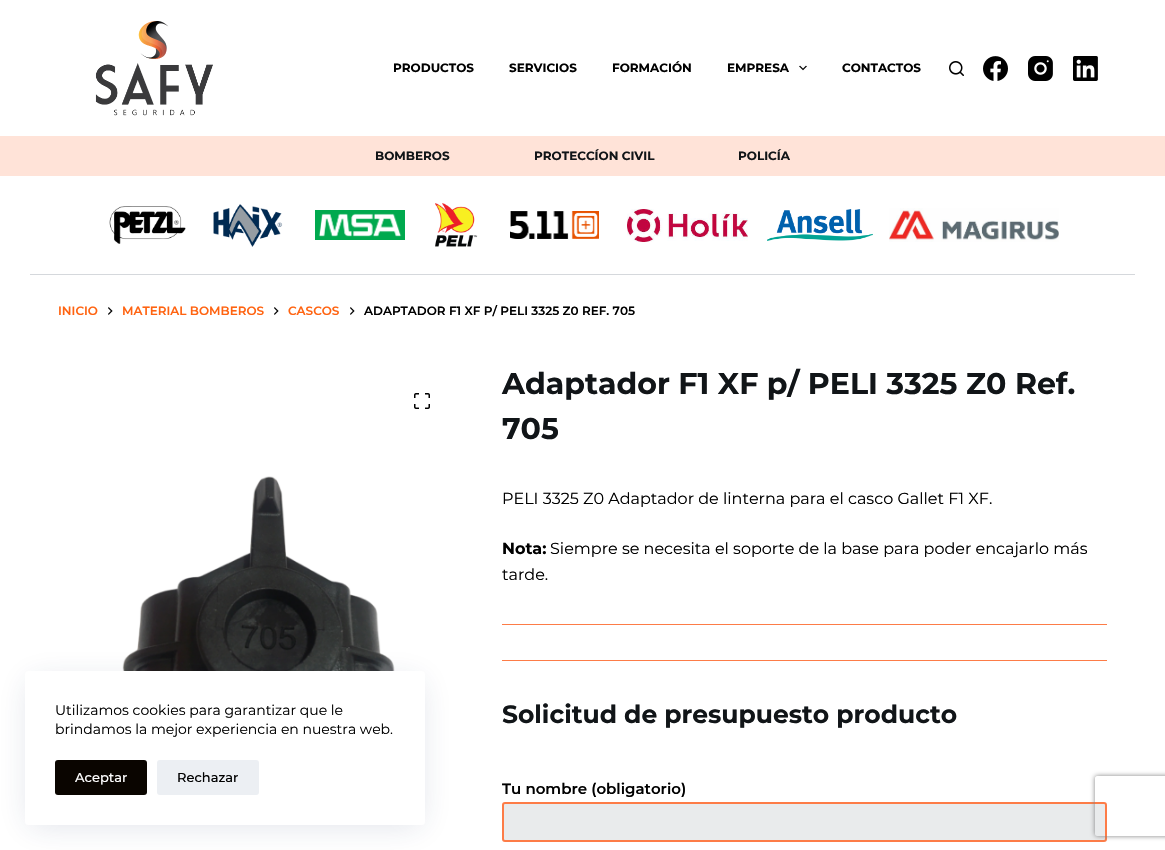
#include "include/core/SkBlurTypes.h"
#include "include/core/SkCanvas.h"
#include "include/core/SkData.h"
#include "include/core/SkFont.h"
#include "include/core/SkFontMgr.h"
#include "include/core/SkImage.h"
#include "include/core/SkMaskFilter.h"
#include "include/core/SkPaint.h"
#include "include/core/SkPathBuilder.h"
#include "include/core/SkTextBlob.h"
#include "include/effects/SkDashPathEffect.h"
#include "include/effects/SkGradientShader.h"
#include "include/utils/SkParsePath.h"

extern sk_sp<SkFontMgr> fontMgr;

void draw(SkCanvas* canvas) {
    SkPaint p;
    p.setAntiAlias(true);
    auto font = [&](const char* family, int weight, float size, bool italic = false) {
        SkFontStyle style(weight, SkFontStyle::kNormal_Width,
            italic ? SkFontStyle::kItalic_Slant : SkFontStyle::kUpright_Slant);
        SkFont result(fontMgr->matchFamilyStyle(family, style), size);
        result.setSubpixel(true);
        return result;
    };
    auto drawPhoto = [&](const char* path, float l, float t, float r, float b) {
        auto image = SkImages::DeferredFromEncodedData(SkData::MakeFromFileName(path));
        canvas->drawImageRect(image, SkRect::MakeLTRB(l, t, r, b), SkSamplingOptions());
    };
    canvas->clear(0xFFFFFFFF);
    drawPhoto("media/1.png", 95, 21, 213, 116);
    auto font1 = font("Montserrat", 700, 12);
    p.setColor(0xFF000000);
    {
        const struct { const char* s; float x, y; } items[] = {
            {"PRODUCTOS", 393, 72},
            {"SERVICIOS", 509, 72},
            {"FORMACIÓN", 612, 72},
            {"EMPRESA", 727, 72},
        };
        for (auto [s, x, y] : items) {
            canvas->drawString(s, x, y, font1, p);
        }
    }
    drawPhoto("media/2.png", 799, 65, 807, 71);
    canvas->drawString("CONTACTOS", 842, 72, font1, p);
    drawPhoto("media/3.png", 949, 61, 964, 76);
    drawPhoto("media/4.png", 983, 56, 1008, 81);
    drawPhoto("media/5.png", 1028, 56, 1053, 81);
    drawPhoto("media/6.png", 1073, 56, 1098, 81);
    p.setColor(0xFFFFE3D8);
    canvas->drawRect(SkRect::MakeLTRB(0, 136, 1165, 176), p);
    p.setColor(0xFF111518);
    {
        const struct { const char* s; float x, y; } items[] = {
            {"BOMBEROS", 375, 160},
            {"PROTECCÍON CIVIL", 534, 160},
            {"POLICÍA", 738, 160},
        };
        for (auto [s, x, y] : items) {
            canvas->drawString(s, x, y, font1, p);
        }
    }
    p.setColor(0xFFD5D8DC);
    canvas->drawRect(SkRect::MakeLTRB(30, 274, 1135, 275), p);
    drawPhoto("media/7.png", 109, 206, 186, 244);
    drawPhoto("media/8.png", 213, 204, 283, 247);
    drawPhoto("media/9.png", 315, 210, 405, 240);
    drawPhoto("media/10.png", 435, 203, 478, 247);
    drawPhoto("media/11.png", 510, 211, 599, 239);
    drawPhoto("media/12.png", 627, 209, 748, 242);
    drawPhoto("media/13.png", 767, 209, 873, 241);
    drawPhoto("media/14.png", 889, 208, 1059, 242);
    auto font2 = font("Montserrat", 600, 12);
    p.setColor(0xFFFF6310);
    canvas->drawString("INICIO", 58, 315, font2, p);
    drawPhoto("media/15.png", 108, 307, 113, 315);
    canvas->drawString("MATERIAL BOMBEROS", 122, 315, font2, p);
    drawPhoto("media/15.png", 274, 307, 279, 315);
    canvas->drawString("CASCOS", 288, 315, font2, p);
    drawPhoto("media/15.png", 350, 307, 355, 315);
    p.setColor(0xFF000000);
    canvas->drawString("ADAPTADOR F1 XF P/ PELI 3325 Z0 REF. 705", 364, 315, font2, p);
    drawPhoto("media/16.png", 414, 393, 430, 409);
    drawPhoto("media/17.png", 122, 476, 395, 671);
    auto font3 = font("Montserrat", 700, 30);
    p.setColor(0xFF111518);
    canvas->drawString("Adaptador F1 XF p/ PELI 3325 Z0 Ref.", 502, 394, font3, p);
    canvas->drawString("705", 502, 439, font3, p);
    auto font4 = font("Montserrat", 400, 16);
    p.setColor(0xFF000000);
    canvas->drawString("PELI 3325 Z0 Adaptador de linterna para el casco Gallet F1 XF.", 502, 504, font4, p);
    auto font5 = font("Montserrat", 700, 16);
    canvas->drawString("Nota:", 502, 554, font5, p);
    canvas->drawString("Siempre se necesita el soporte de la base para poder encajarlo más", 550, 554, font4, p);
    canvas->drawString("tarde.", 502, 580, font4, p);
    p.setColor(0xFFFD7C47);
    canvas->drawRect(SkRect::MakeLTRB(502, 624, 1107, 625), p);
    canvas->drawRect(SkRect::MakeLTRB(502, 660, 1107, 661), p);
    auto font6 = font("Montserrat", 700, 25);
    p.setColor(0xFF111518);
    canvas->drawString("Solicitud de presupuesto producto", 502, 723, font6, p);
    auto font7 = font("Montserrat", 600, 15);
    p.setColor(0xFF000000);
    canvas->drawString("Tu nombre (obligatorio)", 502, 794, font7, p);
    p.setColor(0xFFE9EBEC);
    canvas->drawRoundRect(SkRect::MakeLTRB(503, 803, 1106, 841), 2, 2, p);
    p.setStyle(SkPaint::kStroke_Style);
    p.setStrokeWidth(2);
    p.setColor(0xFFFD7C47);
    canvas->drawRoundRect(SkRect::MakeLTRB(503, 803, 1106, 841), 2, 2, p);
    p.setStyle(SkPaint::kFill_Style);
    p.setColor(0x26223865);
    p.setMaskFilter(SkMaskFilter::MakeBlur(kNormal_SkBlurStyle, 15));
    canvas->drawRect(SkRect::MakeLTRB(30, 681, 420, 825), p);
    p.setMaskFilter(nullptr);
    p.setColor(0xFFFFFFFF);
    canvas->drawRoundRect(SkRect::MakeLTRB(25, 671, 425, 825), 3, 3, p);
    auto font8 = font("Montserrat", 400, 14);
    p.setColor(0xFF000000);
    canvas->drawString("Utilizamos cookies para garantizar que le", 55, 715, font8, p);
    canvas->drawString("brindamos la mejor experiencia en nuestra web.", 55, 734, font8, p);
    p.setColor(0xFF0A0500);
    canvas->drawRoundRect(SkRect::MakeLTRB(55, 760, 147, 795), 3, 3, p);
    auto font9 = font("Montserrat", 500, 13);
    p.setColor(0xFFFFFFFF);
    canvas->drawString("Aceptar", 75, 782, font9, p);
    p.setColor(0xFFECEFF3);
    canvas->drawRoundRect(SkRect::MakeLTRB(157, 760, 259, 795), 3, 3, p);
    p.setColor(0xFF000000);
    canvas->drawString("Rechazar", 177, 782, font9, p);
    canvas->save();
    canvas->clipPath(SkPathBuilder(SkPathFillType::kEvenOdd).moveTo(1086, 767).lineTo(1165, 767).lineTo(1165, 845).lineTo(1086, 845).close().moveTo(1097, 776).lineTo(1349, 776).cubicTo(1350, 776, 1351, 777, 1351, 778).lineTo(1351, 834).cubicTo(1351, 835, 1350, 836, 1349, 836).lineTo(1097, 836).cubicTo(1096, 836, 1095, 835, 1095, 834).lineTo(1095, 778).cubicTo(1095, 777, 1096, 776, 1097, 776).close().detach(), true);
    p.setColor(0xFF808080);
    p.setMaskFilter(SkMaskFilter::MakeBlur(kNormal_SkBlurStyle, 2.5f));
    canvas->drawRoundRect(SkRect::MakeLTRB(1095, 776, 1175, 836), 2, 2, p);
    p.setMaskFilter(nullptr);
    canvas->restore();
}
